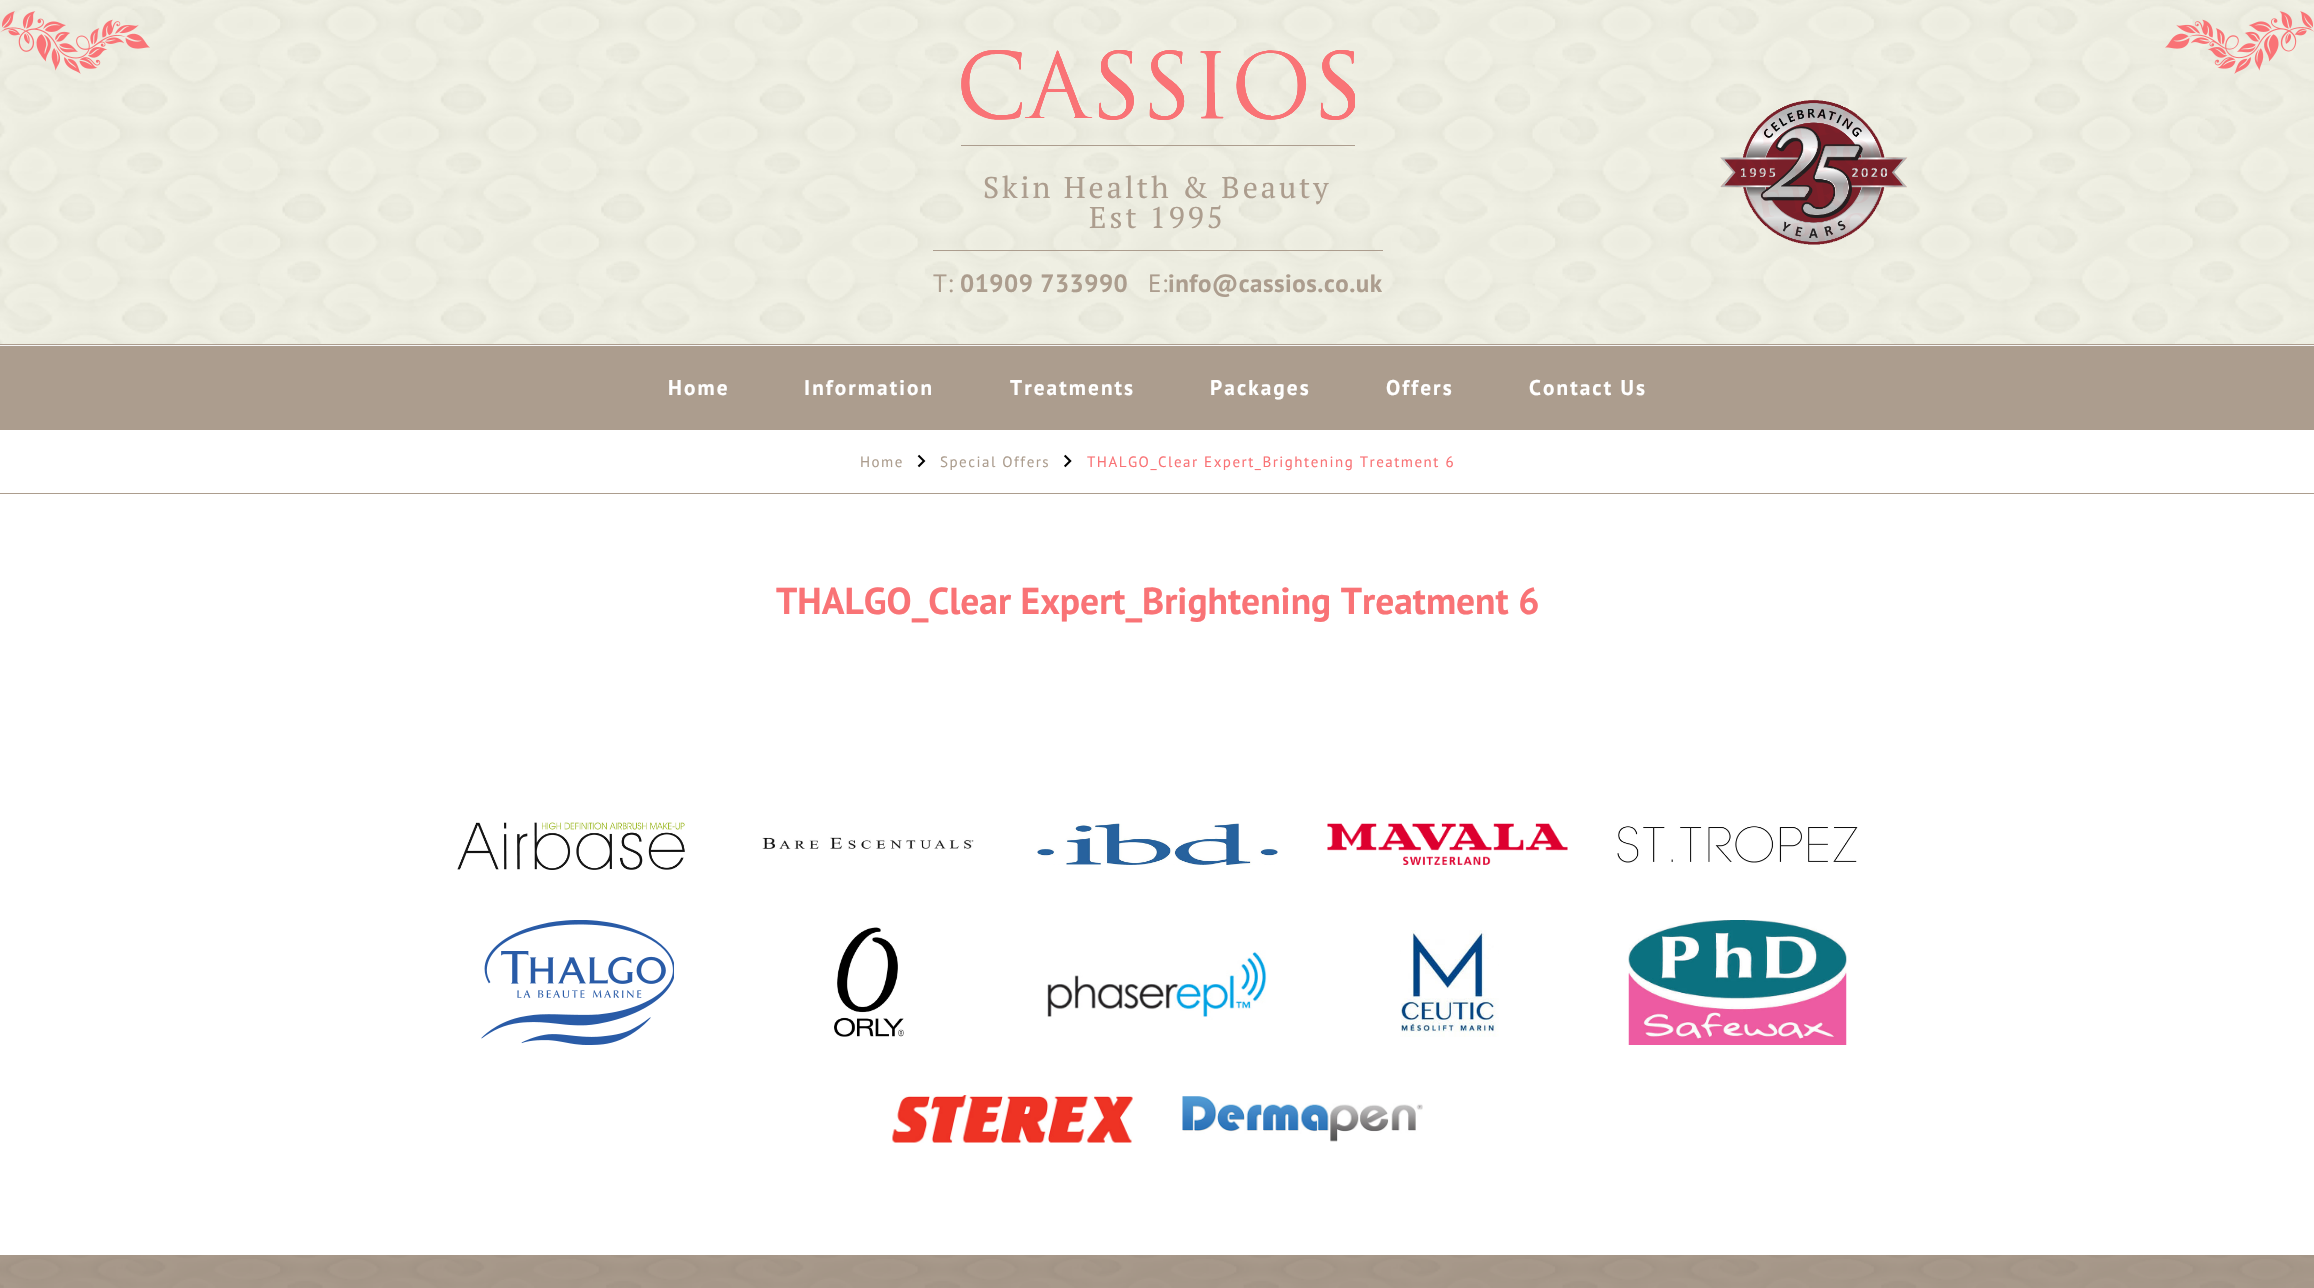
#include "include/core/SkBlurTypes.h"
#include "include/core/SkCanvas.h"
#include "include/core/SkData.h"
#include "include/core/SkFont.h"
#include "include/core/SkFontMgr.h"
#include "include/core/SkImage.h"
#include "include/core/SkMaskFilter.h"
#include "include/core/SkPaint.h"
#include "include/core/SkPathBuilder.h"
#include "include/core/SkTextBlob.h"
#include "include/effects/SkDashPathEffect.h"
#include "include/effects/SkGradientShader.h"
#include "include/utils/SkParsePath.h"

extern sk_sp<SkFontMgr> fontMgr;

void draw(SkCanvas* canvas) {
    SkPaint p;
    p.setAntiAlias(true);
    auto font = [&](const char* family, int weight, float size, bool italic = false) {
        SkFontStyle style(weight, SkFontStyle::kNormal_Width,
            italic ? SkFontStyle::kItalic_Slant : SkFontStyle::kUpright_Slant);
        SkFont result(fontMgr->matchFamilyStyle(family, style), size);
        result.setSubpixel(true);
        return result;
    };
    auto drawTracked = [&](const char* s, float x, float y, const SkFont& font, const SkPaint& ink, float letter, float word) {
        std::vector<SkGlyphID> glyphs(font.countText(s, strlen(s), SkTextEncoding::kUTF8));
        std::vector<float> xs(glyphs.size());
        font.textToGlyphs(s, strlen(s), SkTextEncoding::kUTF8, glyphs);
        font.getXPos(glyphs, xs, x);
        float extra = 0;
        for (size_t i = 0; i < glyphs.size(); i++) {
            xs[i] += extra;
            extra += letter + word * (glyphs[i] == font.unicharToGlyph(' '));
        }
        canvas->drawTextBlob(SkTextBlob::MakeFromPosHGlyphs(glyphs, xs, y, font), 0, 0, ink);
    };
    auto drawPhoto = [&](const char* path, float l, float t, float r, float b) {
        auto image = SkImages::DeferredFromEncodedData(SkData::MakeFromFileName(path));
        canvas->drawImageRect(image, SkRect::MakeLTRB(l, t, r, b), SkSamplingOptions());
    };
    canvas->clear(0xFFFFFFFF);
    drawPhoto("media/1.png", 0, 0, 2314, 344);
    drawPhoto("media/2.png", 0, 11, 150, 74);
    drawPhoto("media/3.png", 2165, 11, 2314, 74);
    p.setColor(0xFFAC9D8E);
    canvas->drawRect(SkRect::MakeLTRB(961, 145, 1355, 146), p);
    drawPhoto("media/4.png", 961, 50, 1355, 120);
    auto font1 = font("PT Serif", 400, 30);
    drawTracked("Skin Health & Beauty", 983, 198, font1, p, 3, 0);
    drawTracked("Est 1995", 1089, 228, font1, p, 3, 0);
    canvas->drawRect(SkRect::MakeLTRB(933, 250, 1383, 251), p);
    auto font2 = font("PT Sans", 400, 25);
    drawTracked("T:", 933, 292, font2, p, 0.5f, 0);
    auto font3 = font("PT Sans", 700, 25);
    drawTracked("01909 733990", 960, 292, font3, p, 0.5f, 0);
    drawTracked("E:", 1148, 292, font2, p, 0.5f, 0);
    drawTracked("info@cassios.co.uk", 1168, 292, font3, p, 0.5f, 0);
    drawPhoto("media/5.png", 1720, 100, 1908, 245);
    {
        const struct { float l, t, r, b; SkColor color; } items[] = {
            {0, 346, 2314, 430, 0xFFAC9D8E},
            {0, 345, 2314, 346, 0xFFF6F6F6},
            {0, 344, 2314, 345, 0xFFAC9D8E},
        };
        for (auto [l, t, r, b, color] : items) {
            p.setColor(color);
            canvas->drawRect(SkRect::MakeLTRB(l, t, r, b), p);
        }
    }
    auto font4 = font("PT Sans", 700, 21.25f);
    p.setColor(0xFFFFFFFF);
    {
        const struct { const char* s; float x, y; } items[] = {
            {"Home", 668, 395},
            {"Information", 804, 395},
            {"Treatments", 1010, 395},
            {"Packages", 1210, 395},
            {"Offers", 1386, 395},
            {"Contact Us", 1529, 395},
        };
        for (auto [s, x, y] : items) {
            drawTracked(s, x, y, font4, p, 2.1f, 0);
        }
    }
    p.setColor(0xFFAC9D8E);
    canvas->drawRect(SkRect::MakeLTRB(0, 493, 2314, 494), p);
    drawPhoto("media/6.png", 917, 454, 926, 468);
    auto font5 = font("PT Sans", 400, 15);
    drawTracked("Home", 860, 467, font5, p, 1.5f, 0);
    drawPhoto("media/7.png", 1064, 454, 1072, 468);
    drawTracked("Special Offers", 940, 467, font5, p, 1.5f, 0);
    p.setColor(0xFFF97376);
    drawTracked("THALGO_Clear Expert_Brightening Treatment 6", 1087, 467, font5, p, 1.5f, 0);
    auto font6 = font("PT Sans", 700, 37.5f);
    canvas->drawString("THALGO_Clear Expert_Brightening Treatment 6", 776, 614, font6, p);
    drawPhoto("media/8.png", 457, 822, 685, 870);
    drawPhoto("media/9.png", 762, 837, 974, 849);
    drawPhoto("media/10.png", 1037, 823, 1278, 865);
    drawPhoto("media/11.png", 1327, 823, 1568, 865);
    drawPhoto("media/12.png", 1617, 826, 1858, 863);
    drawPhoto("media/13.png", 481, 920, 674, 1045);
    drawPhoto("media/14.png", 834, 927, 904, 1037);
    drawPhoto("media/15.png", 1047, 950, 1267, 1020);
    drawPhoto("media/16.png", 1400, 930, 1499, 1037);
    drawPhoto("media/17.png", 1628, 920, 1847, 1045);
    drawPhoto("media/18.png", 892, 1095, 1133, 1143);
    drawPhoto("media/19.png", 1182, 1096, 1423, 1142);
    drawPhoto("media/20.png", 0, 1255, 2314, 1288);
}
